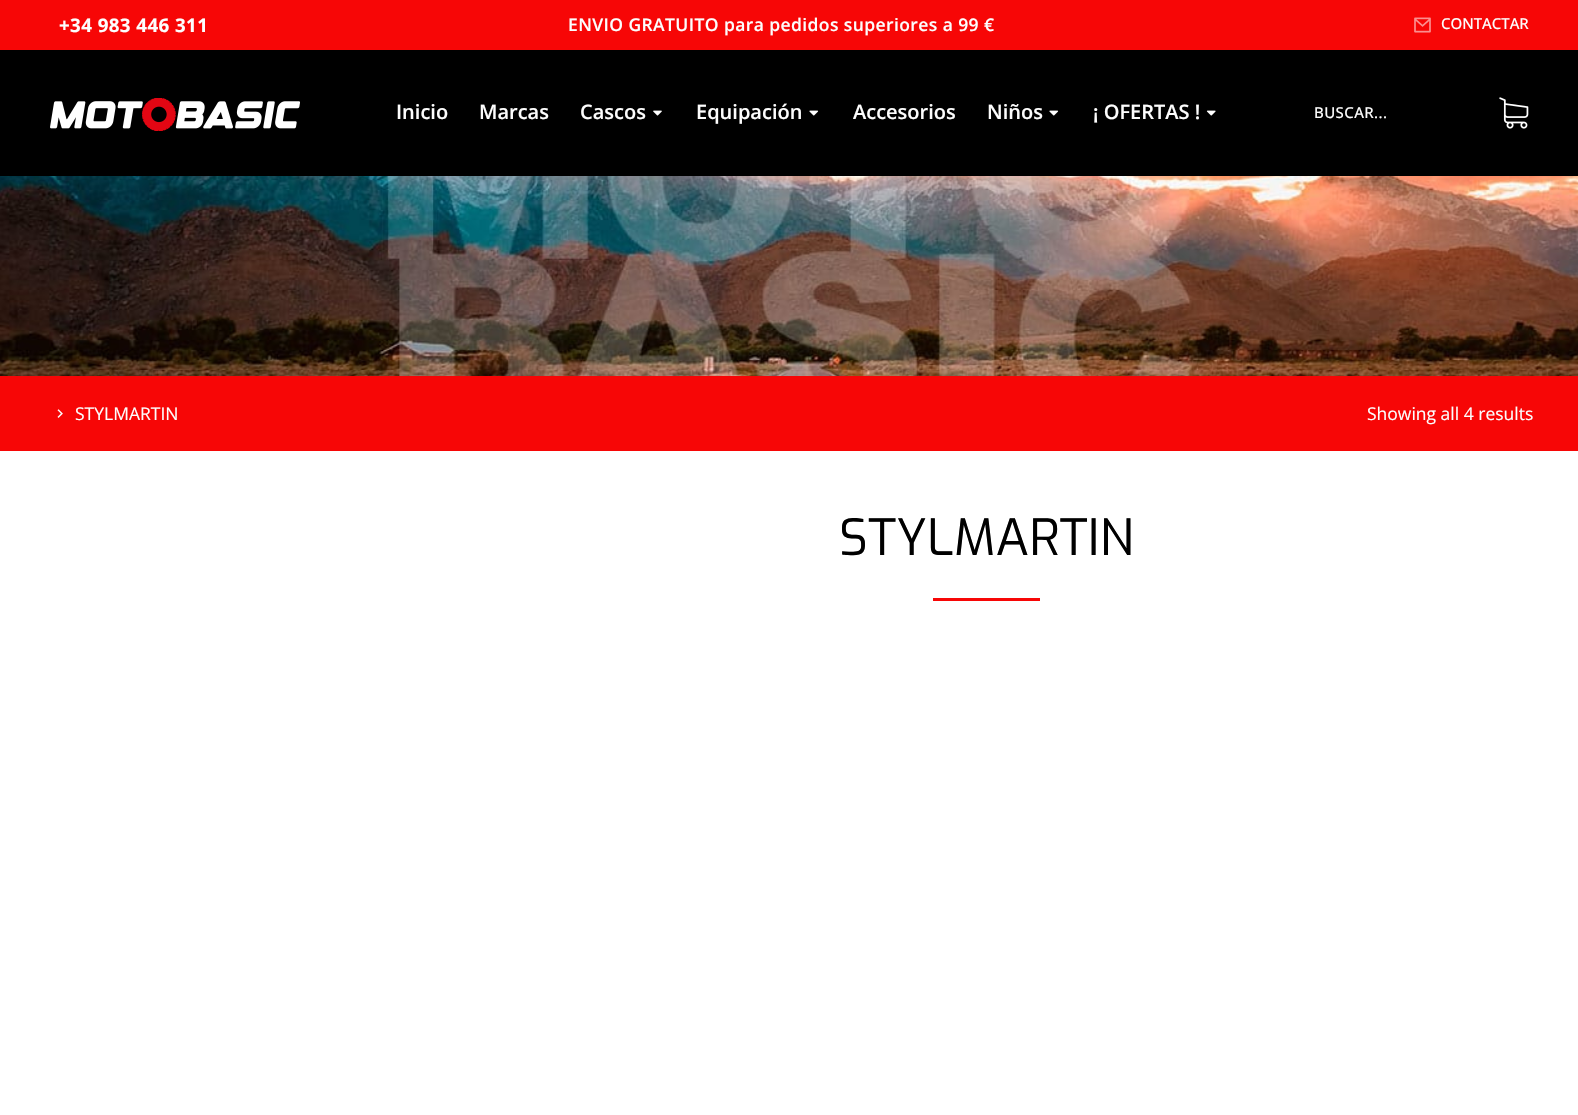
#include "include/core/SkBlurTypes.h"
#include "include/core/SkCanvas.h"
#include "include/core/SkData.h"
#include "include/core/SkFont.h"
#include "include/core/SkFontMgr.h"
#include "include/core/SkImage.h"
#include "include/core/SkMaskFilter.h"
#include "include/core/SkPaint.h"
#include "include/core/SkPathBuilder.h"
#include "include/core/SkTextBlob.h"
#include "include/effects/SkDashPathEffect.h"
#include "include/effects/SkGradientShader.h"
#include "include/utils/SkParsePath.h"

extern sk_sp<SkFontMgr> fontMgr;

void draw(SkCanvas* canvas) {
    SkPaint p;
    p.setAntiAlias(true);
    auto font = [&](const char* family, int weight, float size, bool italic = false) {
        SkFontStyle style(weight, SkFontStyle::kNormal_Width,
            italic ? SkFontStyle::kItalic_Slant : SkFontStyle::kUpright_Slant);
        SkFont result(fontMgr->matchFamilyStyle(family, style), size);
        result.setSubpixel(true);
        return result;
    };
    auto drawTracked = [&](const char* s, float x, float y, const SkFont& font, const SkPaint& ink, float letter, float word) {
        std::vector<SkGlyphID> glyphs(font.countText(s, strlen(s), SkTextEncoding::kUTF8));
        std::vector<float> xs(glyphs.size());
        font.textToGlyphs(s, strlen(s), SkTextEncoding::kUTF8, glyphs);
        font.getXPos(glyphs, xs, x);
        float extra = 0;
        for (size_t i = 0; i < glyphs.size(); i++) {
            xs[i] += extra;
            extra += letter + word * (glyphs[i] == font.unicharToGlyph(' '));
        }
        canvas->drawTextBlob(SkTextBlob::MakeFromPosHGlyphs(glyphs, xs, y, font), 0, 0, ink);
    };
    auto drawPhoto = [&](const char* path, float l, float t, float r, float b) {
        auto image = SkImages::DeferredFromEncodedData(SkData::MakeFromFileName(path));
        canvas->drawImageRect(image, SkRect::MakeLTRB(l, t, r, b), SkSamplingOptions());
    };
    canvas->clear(0xFFFFFFFF);
    p.setColor(0xFFF70606);
    canvas->drawRect(SkRect::MakeLTRB(0, 0, 1578, 50), p);
    auto font1 = font("Open Sans", 700, 18.75f);
    p.setColor(0xFFFDFDFD);
    drawTracked("+34 983 446 311", 59, 32, font1, p, 0.4f, 0);
    auto font2 = font("Open Sans", 600, 17.5f);
    drawTracked("ENVIO GRATUITO para pedidos superiores a 99 €", 568, 31, font2, p, 0.4f, 0);
    drawPhoto("media/1.png", 1414, 17, 1431, 33);
    auto font3 = font("Open Sans", 500, 15);
    canvas->drawString("CONTACTAR", 1441, 29, font3, p);
    p.setColor(0xFF000000);
    canvas->drawRect(SkRect::MakeLTRB(0, 50, 1578, 176), p);
    drawPhoto("media/2.png", 50, 98, 300, 131);
    auto font4 = font("Open Sans", 600, 20);
    p.setColor(0xFFFDFDFD);
    {
        const struct { const char* s; float x, y; } items[] = {
            {"Inicio", 396, 119},
            {"Marcas", 479, 119},
            {"Cascos", 580, 119},
        };
        for (auto [s, x, y] : items) {
            canvas->drawString(s, x, y, font4, p);
        }
    }
    drawPhoto("media/3.png", 653, 110, 662, 116);
    canvas->drawString("Equipación", 696, 119, font4, p);
    drawPhoto("media/4.png", 809, 110, 819, 116);
    canvas->drawString("Accesorios", 853, 119, font4, p);
    canvas->drawString("Niños", 987, 119, font4, p);
    drawPhoto("media/4.png", 1049, 110, 1059, 116);
    canvas->drawString("¡ OFERTAS !", 1093, 119, font4, p);
    drawPhoto("media/5.png", 1206, 110, 1216, 116);
    drawTracked("BUSCAR...", 1314, 118, font3, p, 0.4f, 0);
    drawPhoto("media/6.png", 1499, 97, 1529, 129);
    drawPhoto("media/7.png", 0, 176, 1578, 376);
    p.setColor(0xFFF70606);
    canvas->drawRect(SkRect::MakeLTRB(0, 376, 1578, 451), p);
    drawPhoto("media/8.png", 57, 409, 63, 418);
    auto font5 = font("Open Sans", 400, 17.5f);
    p.setColor(0xFFFDFDFD);
    canvas->drawString("STYLMARTIN", 75, 420, font5, p);
    canvas->drawString("Showing all 4 results", 1367, 420, font5, p);
    auto font6 = font("Exo", 400, 50);
    p.setColor(0xFF000000);
    canvas->drawString("STYLMARTIN", 839, 555, font6, p);
    p.setColor(0xFFF70606);
    canvas->drawRect(SkRect::MakeLTRB(933, 598, 1040, 601), p);
}
